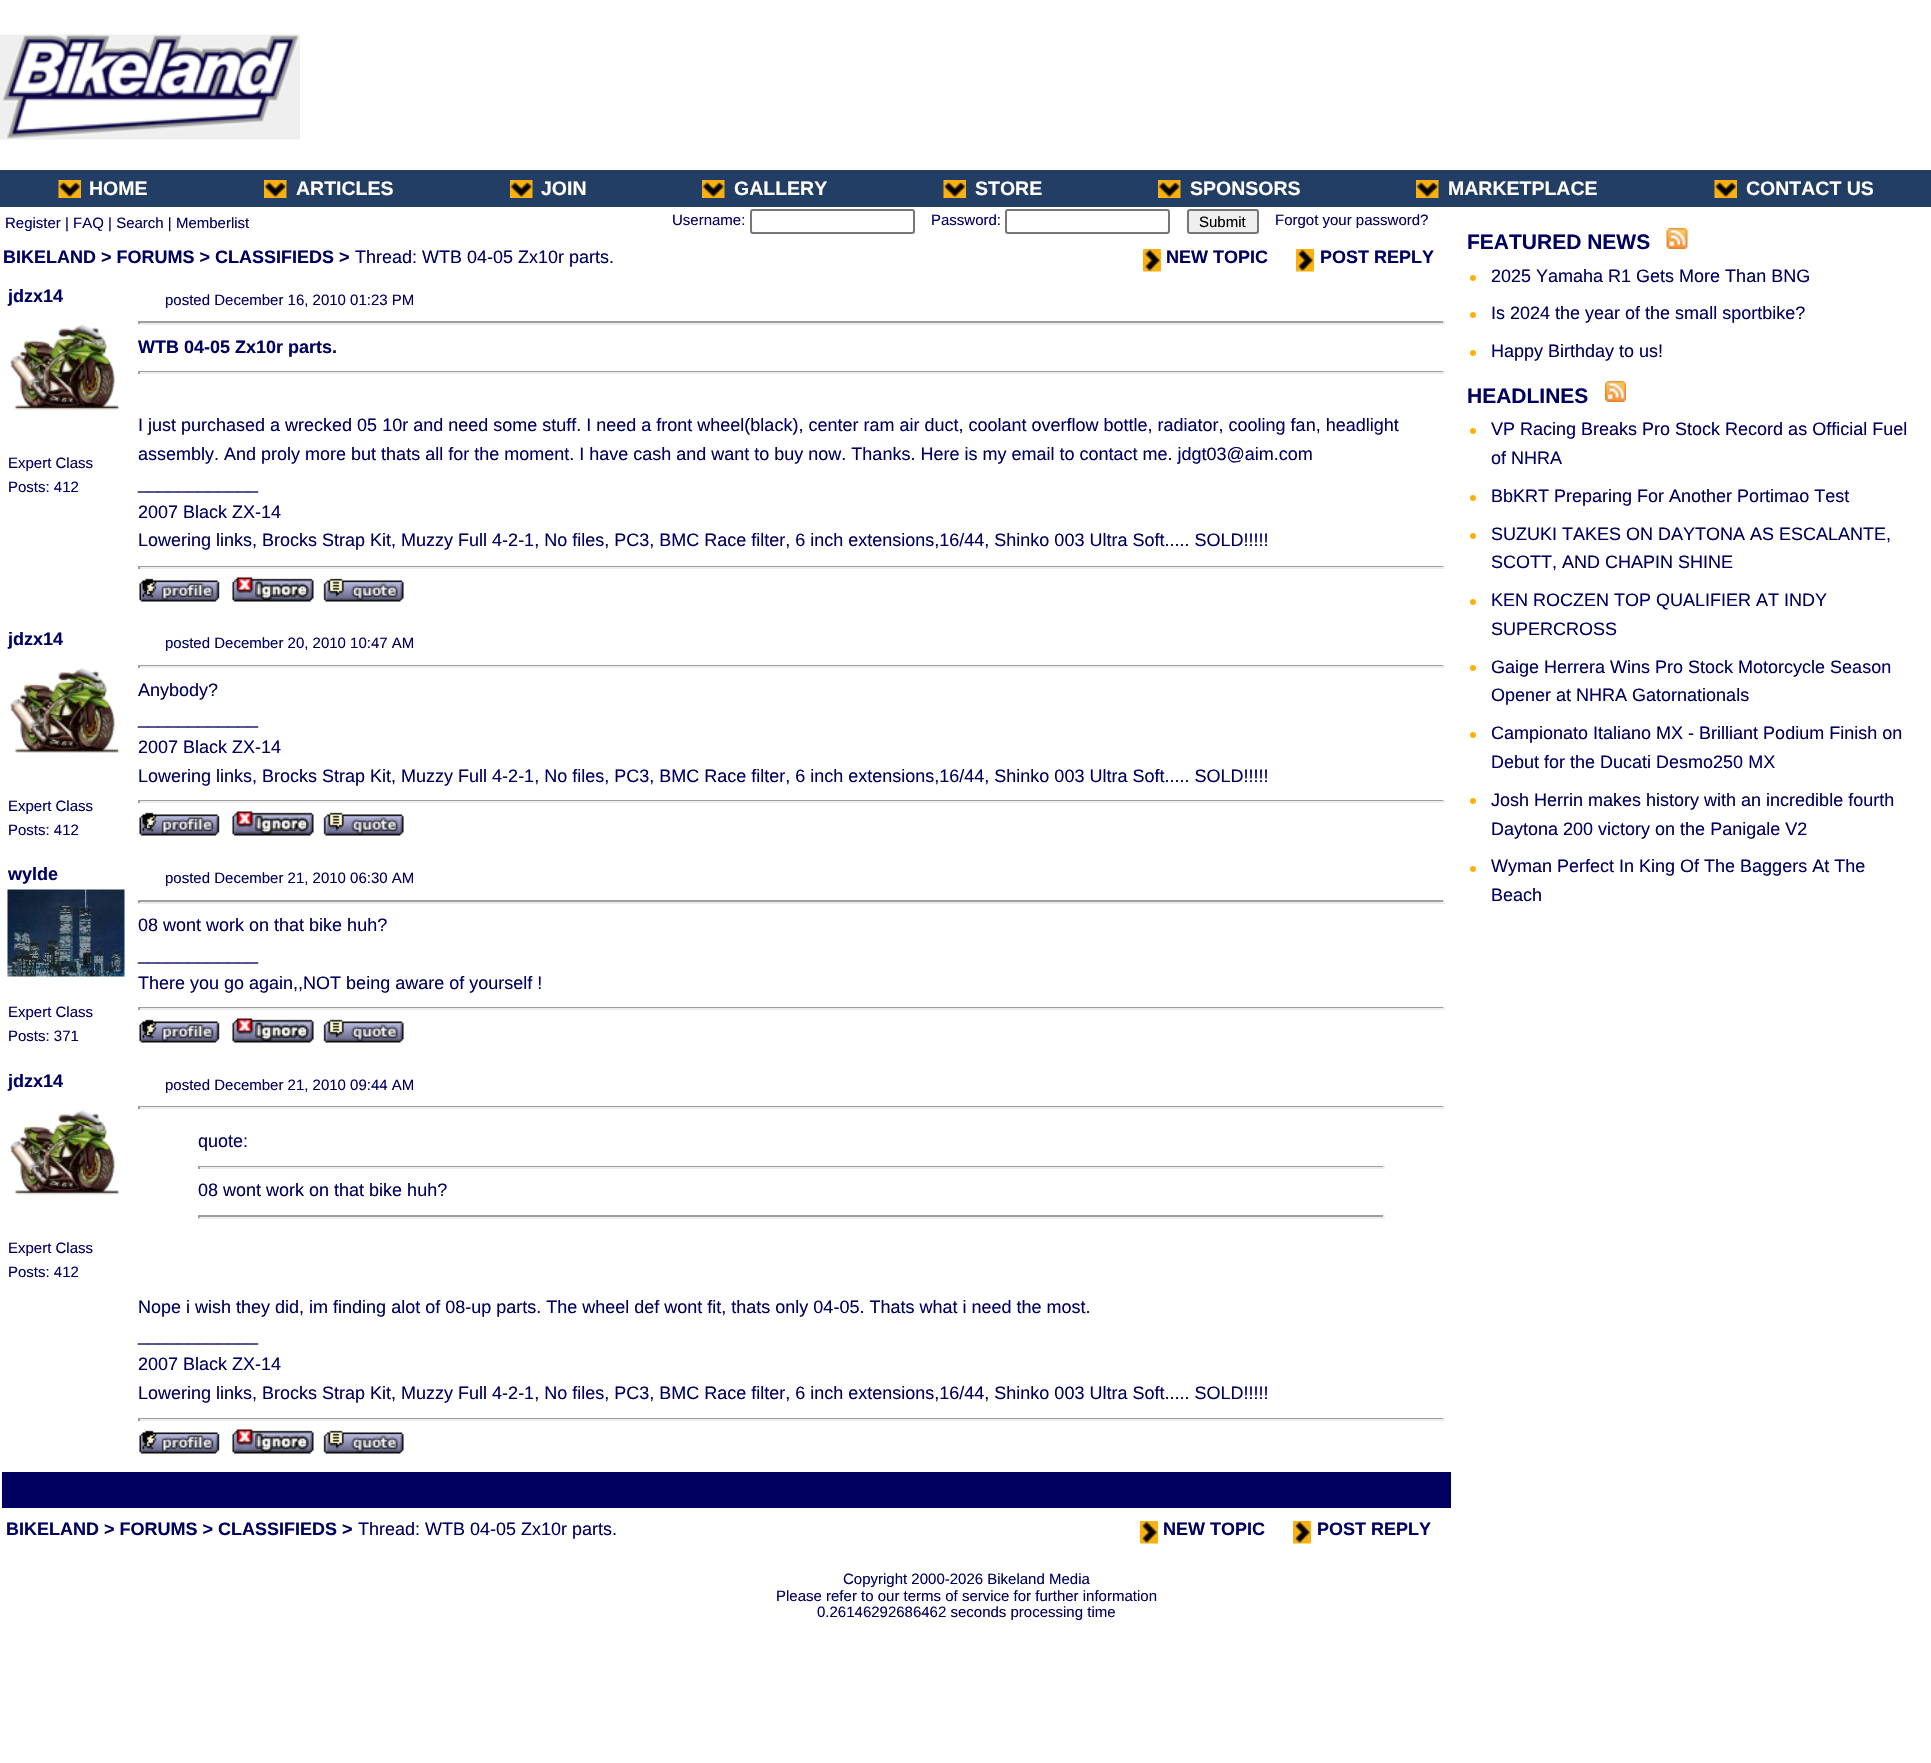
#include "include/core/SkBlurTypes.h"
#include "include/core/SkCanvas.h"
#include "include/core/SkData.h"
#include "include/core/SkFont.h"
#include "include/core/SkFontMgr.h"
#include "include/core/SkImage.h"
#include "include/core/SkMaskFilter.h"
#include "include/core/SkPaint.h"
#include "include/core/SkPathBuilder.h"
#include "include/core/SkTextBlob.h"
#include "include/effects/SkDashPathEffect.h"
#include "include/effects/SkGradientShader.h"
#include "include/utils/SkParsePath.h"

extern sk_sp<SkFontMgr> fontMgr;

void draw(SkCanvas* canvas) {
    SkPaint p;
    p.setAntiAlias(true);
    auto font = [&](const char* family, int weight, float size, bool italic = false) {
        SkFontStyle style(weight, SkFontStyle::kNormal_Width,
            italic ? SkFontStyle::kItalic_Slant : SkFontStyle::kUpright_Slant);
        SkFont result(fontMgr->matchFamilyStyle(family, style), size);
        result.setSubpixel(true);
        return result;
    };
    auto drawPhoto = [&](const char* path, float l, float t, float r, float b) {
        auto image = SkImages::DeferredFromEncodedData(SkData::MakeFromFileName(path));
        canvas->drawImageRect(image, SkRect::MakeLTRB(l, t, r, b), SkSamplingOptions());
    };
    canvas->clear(0xFFFFFFFF);
    drawPhoto("media/1.png", 0, 34, 300, 140);
    p.setColor(0xFF223E65);
    canvas->drawRect(SkRect::MakeLTRB(0, 170, 1931, 207), p);
    drawPhoto("media/2.png", 58, 180, 81, 198);
    auto font1 = font("Liberation Sans", 700, 19.5f);
    p.setColor(0xFFFFFFFF);
    canvas->drawString("HOME", 89, 195, font1, p);
    drawPhoto("media/3.png", 264, 180, 287, 198);
    canvas->drawString("ARTICLES", 296, 195, font1, p);
    drawPhoto("media/4.png", 510, 180, 533, 198);
    canvas->drawString("JOIN", 541, 195, font1, p);
    drawPhoto("media/5.png", 702, 180, 725, 198);
    canvas->drawString("GALLERY", 734, 195, font1, p);
    drawPhoto("media/2.png", 943, 180, 966, 198);
    canvas->drawString("STORE", 975, 195, font1, p);
    drawPhoto("media/5.png", 1158, 180, 1181, 198);
    canvas->drawString("SPONSORS", 1190, 195, font1, p);
    drawPhoto("media/4.png", 1416, 180, 1439, 198);
    canvas->drawString("MARKETPLACE", 1448, 195, font1, p);
    drawPhoto("media/2.png", 1714, 180, 1737, 198);
    canvas->drawString("CONTACT US", 1746, 195, font1, p);
    auto font2 = font("Liberation Sans", 400, 15);
    p.setColor(0xFF000060);
    canvas->drawString("Register | FAQ | Search | Memberlist", 5, 228, font2, p);
    canvas->drawString("Username:", 672, 225, font2, p);
    p.setStyle(SkPaint::kStroke_Style);
    p.setStrokeWidth(2);
    p.setColor(0xFF767676);
    canvas->drawRoundRect(SkRect::MakeLTRB(751, 210, 914, 233), 2, 2, p);
    p.setStyle(SkPaint::kFill_Style);
    p.setColor(0xFF000060);
    canvas->drawString("Password:", 931, 225, font2, p);
    p.setStyle(SkPaint::kStroke_Style);
    p.setColor(0xFF767676);
    canvas->drawRoundRect(SkRect::MakeLTRB(1006, 210, 1169, 233), 2, 2, p);
    p.setStyle(SkPaint::kFill_Style);
    p.setColor(0xFFEFEFEF);
    canvas->drawRoundRect(SkRect::MakeLTRB(1188, 210, 1258, 233), 2, 2, p);
    p.setStyle(SkPaint::kStroke_Style);
    p.setColor(0xFF767676);
    canvas->drawRoundRect(SkRect::MakeLTRB(1188, 210, 1258, 233), 2, 2, p);
    p.setStyle(SkPaint::kFill_Style);
    p.setColor(0xFF000000);
    canvas->drawString("Submit", 1199, 227, font2, p);
    p.setColor(0xFF000060);
    canvas->drawString("Forgot your password?", 1275, 225, font2, p);
    auto font3 = font("Liberation Sans", 700, 18);
    canvas->drawString("BIKELAND > FORUMS > CLASSIFIEDS >", 3, 263, font3, p);
    auto font4 = font("Liberation Sans", 400, 18);
    canvas->drawString("Thread: WTB 04-05 Zx10r parts.", 355, 263, font4, p);
    drawPhoto("media/6.png", 1143, 249, 1161, 272);
    canvas->drawString("NEW TOPIC", 1166, 263, font3, p);
    drawPhoto("media/7.png", 1296, 249, 1314, 272);
    canvas->drawString("POST REPLY", 1320, 263, font3, p);
    canvas->drawString("jdzx14", 8, 302, font3, p);
    drawPhoto("media/8.png", 10, 324, 120, 410);
    {
        const struct { const char* s; float x, y; } items[] = {
            {"Expert Class", 8, 468},
            {"Posts: 412", 8, 492},
            {"posted December 16, 2010 01:23 PM", 165, 305},
        };
        for (auto [s, x, y] : items) {
            canvas->drawString(s, x, y, font2, p);
        }
    }
    {
        const struct { float l, t, r, b; SkColor color; } items[] = {
            {138, 321, 1445, 323, 0xFF9F9F9F},
            {1443, 321, 1445, 324, 0xFFEEEEEE},
            {138, 323, 1445, 325, 0xFFEEEEEE},
            {138, 321, 140, 324, 0xFF9F9F9F},
        };
        for (auto [l, t, r, b, color] : items) {
            p.setColor(color);
            canvas->drawRect(SkRect::MakeLTRB(l, t, r, b), p);
        }
    }
    p.setColor(0xFF000060);
    canvas->drawString("WTB 04-05 Zx10r parts.", 138, 353, font3, p);
    {
        const struct { float l, t, r, b; SkColor color; } items[] = {
            {138, 371, 1445, 372, 0xFF9F9F9F},
            {1443, 371, 1445, 374, 0xFFEEEEEE},
            {138, 372, 1445, 374, 0xFFEEEEEE},
            {138, 371, 140, 374, 0xFF9F9F9F},
        };
        for (auto [l, t, r, b, color] : items) {
            p.setColor(color);
            canvas->drawRect(SkRect::MakeLTRB(l, t, r, b), p);
        }
    }
    p.setColor(0xFF000060);
    {
        const struct { const char* s; float x, y; } items[] = {
            {"I just purchased a wrecked 05 10r and need some stuff. I need a front wheel(black), center ram air duct, coolant overflow bottle, radiator, cooling fan, headlight", 138, 431},
            {"assembly. And proly more but thats all for the moment. I have cash and want to buy now. Thanks. Here is my email to contact me. jdgt03@aim.com", 138, 460},
            {"____________", 138, 489},
            {"2007 Black ZX-14", 138, 518},
            {"Lowering links, Brocks Strap Kit, Muzzy Full 4-2-1, No files, PC3, BMC Race filter, 6 inch extensions,16/44, Shinko 003 Ultra Soft..... SOLD!!!!!", 138, 546},
        };
        for (auto [s, x, y] : items) {
            canvas->drawString(s, x, y, font4, p);
        }
    }
    {
        const struct { float l, t, r, b; SkColor color; } items[] = {
            {138, 566, 1445, 567, 0xFF9F9F9F},
            {1443, 566, 1445, 569, 0xFFEEEEEE},
            {138, 567, 1445, 569, 0xFFEEEEEE},
            {138, 566, 140, 569, 0xFF9F9F9F},
        };
        for (auto [l, t, r, b, color] : items) {
            p.setColor(color);
            canvas->drawRect(SkRect::MakeLTRB(l, t, r, b), p);
        }
    }
    drawPhoto("media/9.png", 139, 578, 220, 602);
    drawPhoto("media/10.png", 232, 577, 314, 602);
    drawPhoto("media/11.png", 323, 578, 404, 602);
    p.setColor(0xFF000060);
    canvas->drawString("jdzx14", 8, 645, font3, p);
    drawPhoto("media/12.png", 10, 668, 120, 753);
    {
        const struct { const char* s; float x, y; } items[] = {
            {"Expert Class", 8, 811},
            {"Posts: 412", 8, 835},
            {"posted December 20, 2010 10:47 AM", 165, 648},
        };
        for (auto [s, x, y] : items) {
            canvas->drawString(s, x, y, font2, p);
        }
    }
    {
        const struct { float l, t, r, b; SkColor color; } items[] = {
            {138, 665, 1445, 666, 0xFF9F9F9F},
            {1443, 665, 1445, 668, 0xFFEEEEEE},
            {138, 666, 1445, 668, 0xFFEEEEEE},
            {138, 665, 140, 668, 0xFF9F9F9F},
        };
        for (auto [l, t, r, b, color] : items) {
            p.setColor(color);
            canvas->drawRect(SkRect::MakeLTRB(l, t, r, b), p);
        }
    }
    p.setColor(0xFF000060);
    {
        const struct { const char* s; float x, y; } items[] = {
            {"Anybody?", 138, 696},
            {"____________", 138, 724},
            {"2007 Black ZX-14", 138, 753},
            {"Lowering links, Brocks Strap Kit, Muzzy Full 4-2-1, No files, PC3, BMC Race filter, 6 inch extensions,16/44, Shinko 003 Ultra Soft..... SOLD!!!!!", 138, 782},
        };
        for (auto [s, x, y] : items) {
            canvas->drawString(s, x, y, font4, p);
        }
    }
    {
        const struct { float l, t, r, b; SkColor color; } items[] = {
            {138, 800, 1445, 801, 0xFF9F9F9F},
            {1443, 800, 1445, 803, 0xFFEEEEEE},
            {138, 801, 1445, 803, 0xFFEEEEEE},
            {138, 800, 140, 803, 0xFF9F9F9F},
        };
        for (auto [l, t, r, b, color] : items) {
            p.setColor(color);
            canvas->drawRect(SkRect::MakeLTRB(l, t, r, b), p);
        }
    }
    drawPhoto("media/9.png", 139, 812, 220, 836);
    drawPhoto("media/10.png", 232, 811, 314, 836);
    drawPhoto("media/11.png", 323, 812, 404, 836);
    p.setColor(0xFF000060);
    canvas->drawString("wylde", 8, 880, font3, p);
    drawPhoto("media/13.png", 7, 889, 125, 977);
    {
        const struct { const char* s; float x, y; } items[] = {
            {"Expert Class", 8, 1017},
            {"Posts: 371", 8, 1041},
            {"posted December 21, 2010 06:30 AM", 165, 883},
        };
        for (auto [s, x, y] : items) {
            canvas->drawString(s, x, y, font2, p);
        }
    }
    {
        const struct { float l, t, r, b; SkColor color; } items[] = {
            {138, 900, 1445, 902, 0xFF9F9F9F},
            {1443, 900, 1445, 903, 0xFFEEEEEE},
            {138, 902, 1445, 904, 0xFFEEEEEE},
            {138, 900, 140, 903, 0xFF9F9F9F},
        };
        for (auto [l, t, r, b, color] : items) {
            p.setColor(color);
            canvas->drawRect(SkRect::MakeLTRB(l, t, r, b), p);
        }
    }
    p.setColor(0xFF000060);
    {
        const struct { const char* s; float x, y; } items[] = {
            {"08 wont work on that bike huh?", 138, 931},
            {"____________", 138, 960},
            {"There you go again,,NOT being aware of yourself !", 138, 989},
        };
        for (auto [s, x, y] : items) {
            canvas->drawString(s, x, y, font4, p);
        }
    }
    {
        const struct { float l, t, r, b; SkColor color; } items[] = {
            {138, 1007, 1445, 1008, 0xFF9F9F9F},
            {1443, 1007, 1445, 1010, 0xFFEEEEEE},
            {138, 1008, 1445, 1010, 0xFFEEEEEE},
            {138, 1007, 140, 1010, 0xFF9F9F9F},
        };
        for (auto [l, t, r, b, color] : items) {
            p.setColor(color);
            canvas->drawRect(SkRect::MakeLTRB(l, t, r, b), p);
        }
    }
    drawPhoto("media/9.png", 139, 1019, 220, 1043);
    drawPhoto("media/10.png", 232, 1018, 314, 1043);
    drawPhoto("media/11.png", 323, 1019, 404, 1043);
    p.setColor(0xFF000060);
    canvas->drawString("jdzx14", 8, 1087, font3, p);
    drawPhoto("media/14.png", 10, 1110, 120, 1195);
    {
        const struct { const char* s; float x, y; } items[] = {
            {"Expert Class", 8, 1253},
            {"Posts: 412", 8, 1277},
            {"posted December 21, 2010 09:44 AM", 165, 1090},
        };
        for (auto [s, x, y] : items) {
            canvas->drawString(s, x, y, font2, p);
        }
    }
    {
        const struct { float l, t, r, b; SkColor color; } items[] = {
            {138, 1106, 1445, 1107, 0xFF9F9F9F},
            {1443, 1106, 1445, 1109, 0xFFEEEEEE},
            {138, 1107, 1445, 1109, 0xFFEEEEEE},
            {138, 1106, 140, 1109, 0xFF9F9F9F},
        };
        for (auto [l, t, r, b, color] : items) {
            p.setColor(color);
            canvas->drawRect(SkRect::MakeLTRB(l, t, r, b), p);
        }
    }
    p.setColor(0xFF000060);
    canvas->drawString("quote:", 198, 1147, font4, p);
    {
        const struct { float l, t, r, b; SkColor color; } items[] = {
            {198, 1166, 1385, 1167, 0xFF9F9F9F},
            {1383, 1166, 1385, 1169, 0xFFEEEEEE},
            {198, 1167, 1385, 1169, 0xFFEEEEEE},
            {198, 1166, 200, 1169, 0xFF9F9F9F},
        };
        for (auto [l, t, r, b, color] : items) {
            p.setColor(color);
            canvas->drawRect(SkRect::MakeLTRB(l, t, r, b), p);
        }
    }
    p.setColor(0xFF000060);
    canvas->drawString("08 wont work on that bike huh?", 198, 1196, font4, p);
    {
        const struct { float l, t, r, b; SkColor color; } items[] = {
            {198, 1215, 1385, 1217, 0xFF9F9F9F},
            {1383, 1215, 1385, 1218, 0xFFEEEEEE},
            {198, 1217, 1385, 1219, 0xFFEEEEEE},
            {198, 1215, 200, 1218, 0xFF9F9F9F},
        };
        for (auto [l, t, r, b, color] : items) {
            p.setColor(color);
            canvas->drawRect(SkRect::MakeLTRB(l, t, r, b), p);
        }
    }
    p.setColor(0xFF000060);
    {
        const struct { const char* s; float x, y; } items[] = {
            {"Nope i wish they did, im finding alot of 08-up parts. The wheel def wont fit, thats only 04-05. Thats what i need the most.", 138, 1313},
            {"____________", 138, 1341},
            {"2007 Black ZX-14", 138, 1370},
            {"Lowering links, Brocks Strap Kit, Muzzy Full 4-2-1, No files, PC3, BMC Race filter, 6 inch extensions,16/44, Shinko 003 Ultra Soft..... SOLD!!!!!", 138, 1399},
        };
        for (auto [s, x, y] : items) {
            canvas->drawString(s, x, y, font4, p);
        }
    }
    {
        const struct { float l, t, r, b; SkColor color; } items[] = {
            {138, 1418, 1445, 1419, 0xFF9F9F9F},
            {1443, 1418, 1445, 1421, 0xFFEEEEEE},
            {138, 1419, 1445, 1421, 0xFFEEEEEE},
            {138, 1418, 140, 1421, 0xFF9F9F9F},
        };
        for (auto [l, t, r, b, color] : items) {
            p.setColor(color);
            canvas->drawRect(SkRect::MakeLTRB(l, t, r, b), p);
        }
    }
    drawPhoto("media/9.png", 139, 1430, 220, 1454);
    drawPhoto("media/10.png", 232, 1429, 314, 1454);
    drawPhoto("media/11.png", 323, 1430, 404, 1454);
    p.setColor(0xFF000060);
    canvas->drawRect(SkRect::MakeLTRB(2, 1472, 1451, 1508), p);
    canvas->drawString("BIKELAND > FORUMS > CLASSIFIEDS >", 6, 1535, font3, p);
    canvas->drawString("Thread: WTB 04-05 Zx10r parts.", 358, 1535, font4, p);
    drawPhoto("media/6.png", 1140, 1521, 1158, 1544);
    canvas->drawString("NEW TOPIC", 1163, 1535, font3, p);
    drawPhoto("media/15.png", 1293, 1521, 1311, 1544);
    canvas->drawString("POST REPLY", 1317, 1535, font3, p);
    auto font5 = font("Liberation Sans", 700, 21);
    canvas->drawString("FEATURED NEWS", 1467, 249, font5, p);
    drawPhoto("media/16.png", 1666, 228, 1688, 249);
    p.setColor(0xFFFFB00F);
    canvas->drawCircle(1473, 278, 3, p);
    p.setColor(0xFF000060);
    canvas->drawString("2025 Yamaha R1 Gets More Than BNG", 1491, 282, font4, p);
    p.setColor(0xFFFFB00F);
    canvas->drawCircle(1473, 315, 3, p);
    p.setColor(0xFF000060);
    canvas->drawString("Is 2024 the year of the small sportbike?", 1491, 319, font4, p);
    p.setColor(0xFFFFB00F);
    canvas->drawCircle(1473, 353, 3, p);
    p.setColor(0xFF000060);
    canvas->drawString("Happy Birthday to us!", 1491, 357, font4, p);
    canvas->drawString("HEADLINES", 1467, 403, font5, p);
    drawPhoto("media/17.png", 1605, 381, 1626, 402);
    p.setColor(0xFFFFB00F);
    canvas->drawCircle(1473, 431, 3, p);
    p.setColor(0xFF000060);
    canvas->drawString("VP Racing Breaks Pro Stock Record as Official Fuel", 1491, 435, font4, p);
    canvas->drawString("of NHRA", 1491, 464, font4, p);
    p.setColor(0xFFFFB00F);
    canvas->drawCircle(1473, 498, 3, p);
    p.setColor(0xFF000060);
    canvas->drawString("BbKRT Preparing For Another Portimao Test", 1491, 502, font4, p);
    p.setColor(0xFFFFB00F);
    canvas->drawCircle(1473, 536, 3, p);
    p.setColor(0xFF000060);
    canvas->drawString("SUZUKI TAKES ON DAYTONA AS ESCALANTE,", 1491, 540, font4, p);
    canvas->drawString("SCOTT, AND CHAPIN SHINE", 1491, 568, font4, p);
    p.setColor(0xFFFFB00F);
    canvas->drawCircle(1473, 602, 3, p);
    p.setColor(0xFF000060);
    canvas->drawString("KEN ROCZEN TOP QUALIFIER AT INDY", 1491, 606, font4, p);
    canvas->drawString("SUPERCROSS", 1491, 635, font4, p);
    p.setColor(0xFFFFB00F);
    canvas->drawCircle(1473, 668, 3, p);
    p.setColor(0xFF000060);
    canvas->drawString("Gaige Herrera Wins Pro Stock Motorcycle Season", 1491, 673, font4, p);
    canvas->drawString("Opener at NHRA Gatornationals", 1491, 701, font4, p);
    p.setColor(0xFFFFB00F);
    canvas->drawCircle(1473, 735, 3, p);
    p.setColor(0xFF000060);
    canvas->drawString("Campionato Italiano MX - Brilliant Podium Finish on", 1491, 739, font4, p);
    canvas->drawString("Debut for the Ducati Desmo250 MX", 1491, 768, font4, p);
    p.setColor(0xFFFFB00F);
    canvas->drawCircle(1473, 801, 3, p);
    p.setColor(0xFF000060);
    canvas->drawString("Josh Herrin makes history with an incredible fourth", 1491, 806, font4, p);
    canvas->drawString("Daytona 200 victory on the Panigale V2", 1491, 835, font4, p);
    p.setColor(0xFFFFB00F);
    canvas->drawCircle(1473, 869, 3, p);
    p.setColor(0xFF000060);
    canvas->drawString("Wyman Perfect In King Of The Baggers At The", 1491, 872, font4, p);
    canvas->drawString("Beach", 1491, 901, font4, p);
    {
        const struct { const char* s; float x, y; } items[] = {
            {"Copyright 2000-2026 Bikeland Media", 843, 1584},
            {"Please refer to our terms of service for further information", 776, 1601},
            {"0.26146292686462 seconds processing time", 817, 1617},
        };
        for (auto [s, x, y] : items) {
            canvas->drawString(s, x, y, font2, p);
        }
    }
}
